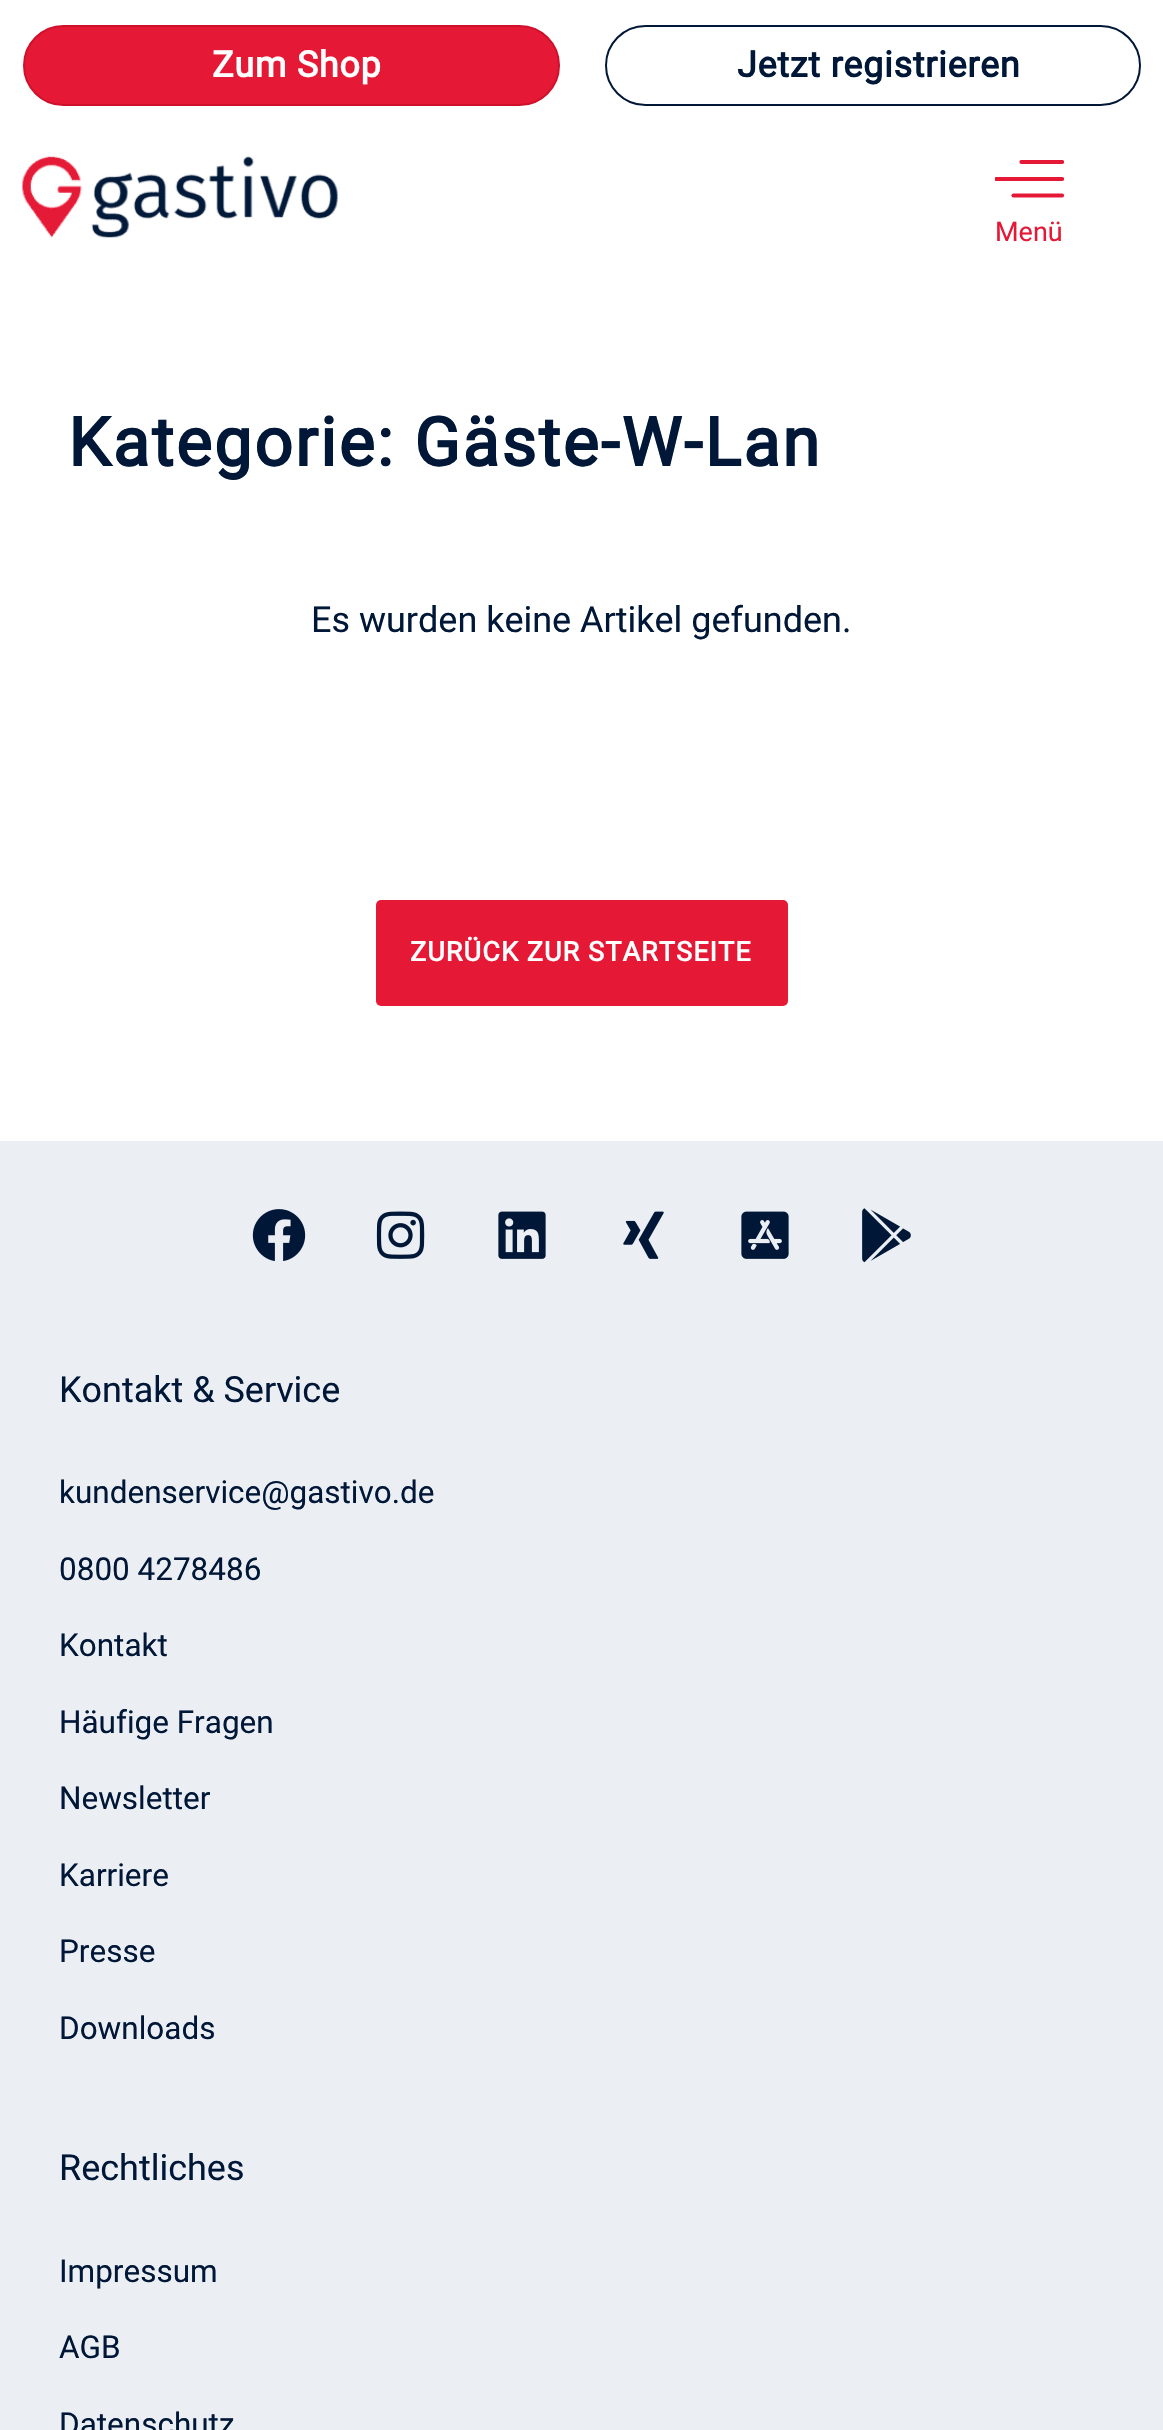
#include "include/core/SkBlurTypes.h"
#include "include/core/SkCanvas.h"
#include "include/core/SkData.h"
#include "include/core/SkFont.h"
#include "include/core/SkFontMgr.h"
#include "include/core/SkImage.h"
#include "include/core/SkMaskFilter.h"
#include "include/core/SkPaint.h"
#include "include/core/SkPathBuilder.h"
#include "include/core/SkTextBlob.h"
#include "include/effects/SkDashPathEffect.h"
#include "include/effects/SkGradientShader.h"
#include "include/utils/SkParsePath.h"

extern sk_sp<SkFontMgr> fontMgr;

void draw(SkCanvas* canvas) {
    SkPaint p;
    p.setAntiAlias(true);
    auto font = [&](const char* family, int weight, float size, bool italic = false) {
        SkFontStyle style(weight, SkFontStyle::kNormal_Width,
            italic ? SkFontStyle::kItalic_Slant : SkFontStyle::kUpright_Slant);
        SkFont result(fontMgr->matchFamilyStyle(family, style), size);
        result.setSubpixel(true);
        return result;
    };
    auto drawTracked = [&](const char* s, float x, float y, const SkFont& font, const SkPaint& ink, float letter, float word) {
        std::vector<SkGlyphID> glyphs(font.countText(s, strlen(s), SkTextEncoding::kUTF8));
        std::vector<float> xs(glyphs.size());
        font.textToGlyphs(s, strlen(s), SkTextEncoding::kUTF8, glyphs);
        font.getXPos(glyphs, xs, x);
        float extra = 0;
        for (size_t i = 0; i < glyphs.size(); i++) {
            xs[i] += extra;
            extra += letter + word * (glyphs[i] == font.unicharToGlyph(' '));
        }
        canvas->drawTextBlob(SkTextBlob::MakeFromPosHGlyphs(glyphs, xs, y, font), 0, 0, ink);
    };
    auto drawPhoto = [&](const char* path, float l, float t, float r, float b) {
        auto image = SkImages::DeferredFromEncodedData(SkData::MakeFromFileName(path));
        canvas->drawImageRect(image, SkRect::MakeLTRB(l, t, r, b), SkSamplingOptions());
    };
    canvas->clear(0xFFFFFFFF);
    p.setColor(0xFFE51936);
    canvas->drawRoundRect(SkRect::MakeLTRB(24, 26, 559, 105), 39.5f, 39.5f, p);
    p.setStyle(SkPaint::kStroke_Style);
    p.setStrokeWidth(2);
    p.setColor(0xFFCF102B);
    canvas->drawRoundRect(SkRect::MakeLTRB(24, 26, 559, 105), 39.5f, 39.5f, p);
    auto font1 = font("Roboto", 700, 36);
    p.setStyle(SkPaint::kFill_Style);
    p.setColor(0xFFFFFFFF);
    drawTracked("Zum Shop", 212, 77, font1, p, 0.7f, 0);
    p.setStyle(SkPaint::kStroke_Style);
    p.setColor(0xFF001737);
    canvas->drawRoundRect(SkRect::MakeLTRB(606, 26, 1140, 105), 39.5f, 39.5f, p);
    p.setStyle(SkPaint::kFill_Style);
    drawTracked("Jetzt registrieren", 737, 77, font1, p, 0.7f, 0);
    drawPhoto("media/1.png", 22, 156, 338, 238);
    canvas->save();
    canvas->clipRect(SkRect::MakeLTRB(995, 160, 1064, 198));
    p.setStyle(SkPaint::kStroke_Style);
    p.setStrokeWidth(4.2f);
    p.setStrokeCap(SkPaint::kRound_Cap);
    p.setStrokeJoin(SkPaint::kRound_Join);
    p.setColor(0xFFE51936);
    canvas->drawPath(SkPathBuilder().moveTo(1062, 162).lineTo(1021.5f, 162).detach(), p);
    canvas->drawPath(SkPathBuilder().moveTo(1062, 179).lineTo(996.5f, 179).detach(), p);
    canvas->restore();
    canvas->drawPath(SkPathBuilder().moveTo(1062, 195.5f).lineTo(1013.5f, 195.5f).detach(), p);
    auto font2 = font("Roboto", 400, 27);
    p.setStyle(SkPaint::kFill_Style);
    canvas->drawString("Menü", 995, 241, font2, p);
    auto font3 = font("Roboto", 700, 67.5f);
    p.setColor(0xFF001737);
    drawTracked("Kategorie: Gäste-W-Lan", 68, 466, font3, p, 2.25f, 0);
    auto font4 = font("Roboto", 400, 36);
    canvas->drawString("Es wurden keine Artikel gefunden.", 311, 632, font4, p);
    p.setColor(0xFFE51936);
    canvas->drawRoundRect(SkRect::MakeLTRB(376, 900, 788, 1006), 5, 5, p);
    auto font5 = font("Roboto", 700, 27);
    p.setColor(0xFFFFFFFF);
    drawTracked("ZURÜCK ZUR STARTSEITE", 410, 961, font5, p, 1.1f, 0);
    p.setColor(0xFFEBEEF3);
    canvas->drawRect(SkRect::MakeLTRB(0, 1141, 1163, 2430), p);
    drawPhoto("media/2.png", 252, 1209, 306, 1261);
    drawPhoto("media/3.png", 376, 1211, 425, 1259);
    drawPhoto("media/4.png", 498, 1211, 546, 1259);
    drawPhoto("media/5.png", 623, 1211, 664, 1259);
    drawPhoto("media/6.png", 741, 1211, 789, 1259);
    drawPhoto("media/7.png", 862, 1208, 911, 1263);
    p.setColor(0xFF001737);
    canvas->drawString("Kontakt & Service", 59, 1402, font4, p);
    auto font6 = font("Roboto", 400, 31.5f);
    {
        const struct { const char* s; float x, y; } items[] = {
            {"kundenservice@gastivo.de", 59, 1503},
            {"0800 4278486", 59, 1580},
            {"Kontakt", 59, 1656},
            {"Häufige Fragen", 59, 1733},
            {"Newsletter", 59, 1809},
            {"Karriere", 59, 1886},
            {"Presse", 59, 1962},
            {"Downloads", 59, 2039},
        };
        for (auto [s, x, y] : items) {
            canvas->drawString(s, x, y, font6, p);
        }
    }
    canvas->drawString("Rechtliches", 59, 2180, font4, p);
    {
        const struct { const char* s; float x, y; } items[] = {
            {"Impressum", 59, 2282},
            {"AGB", 59, 2358},
            {"Datenschutz", 59, 2435},
        };
        for (auto [s, x, y] : items) {
            canvas->drawString(s, x, y, font6, p);
        }
    }
}
